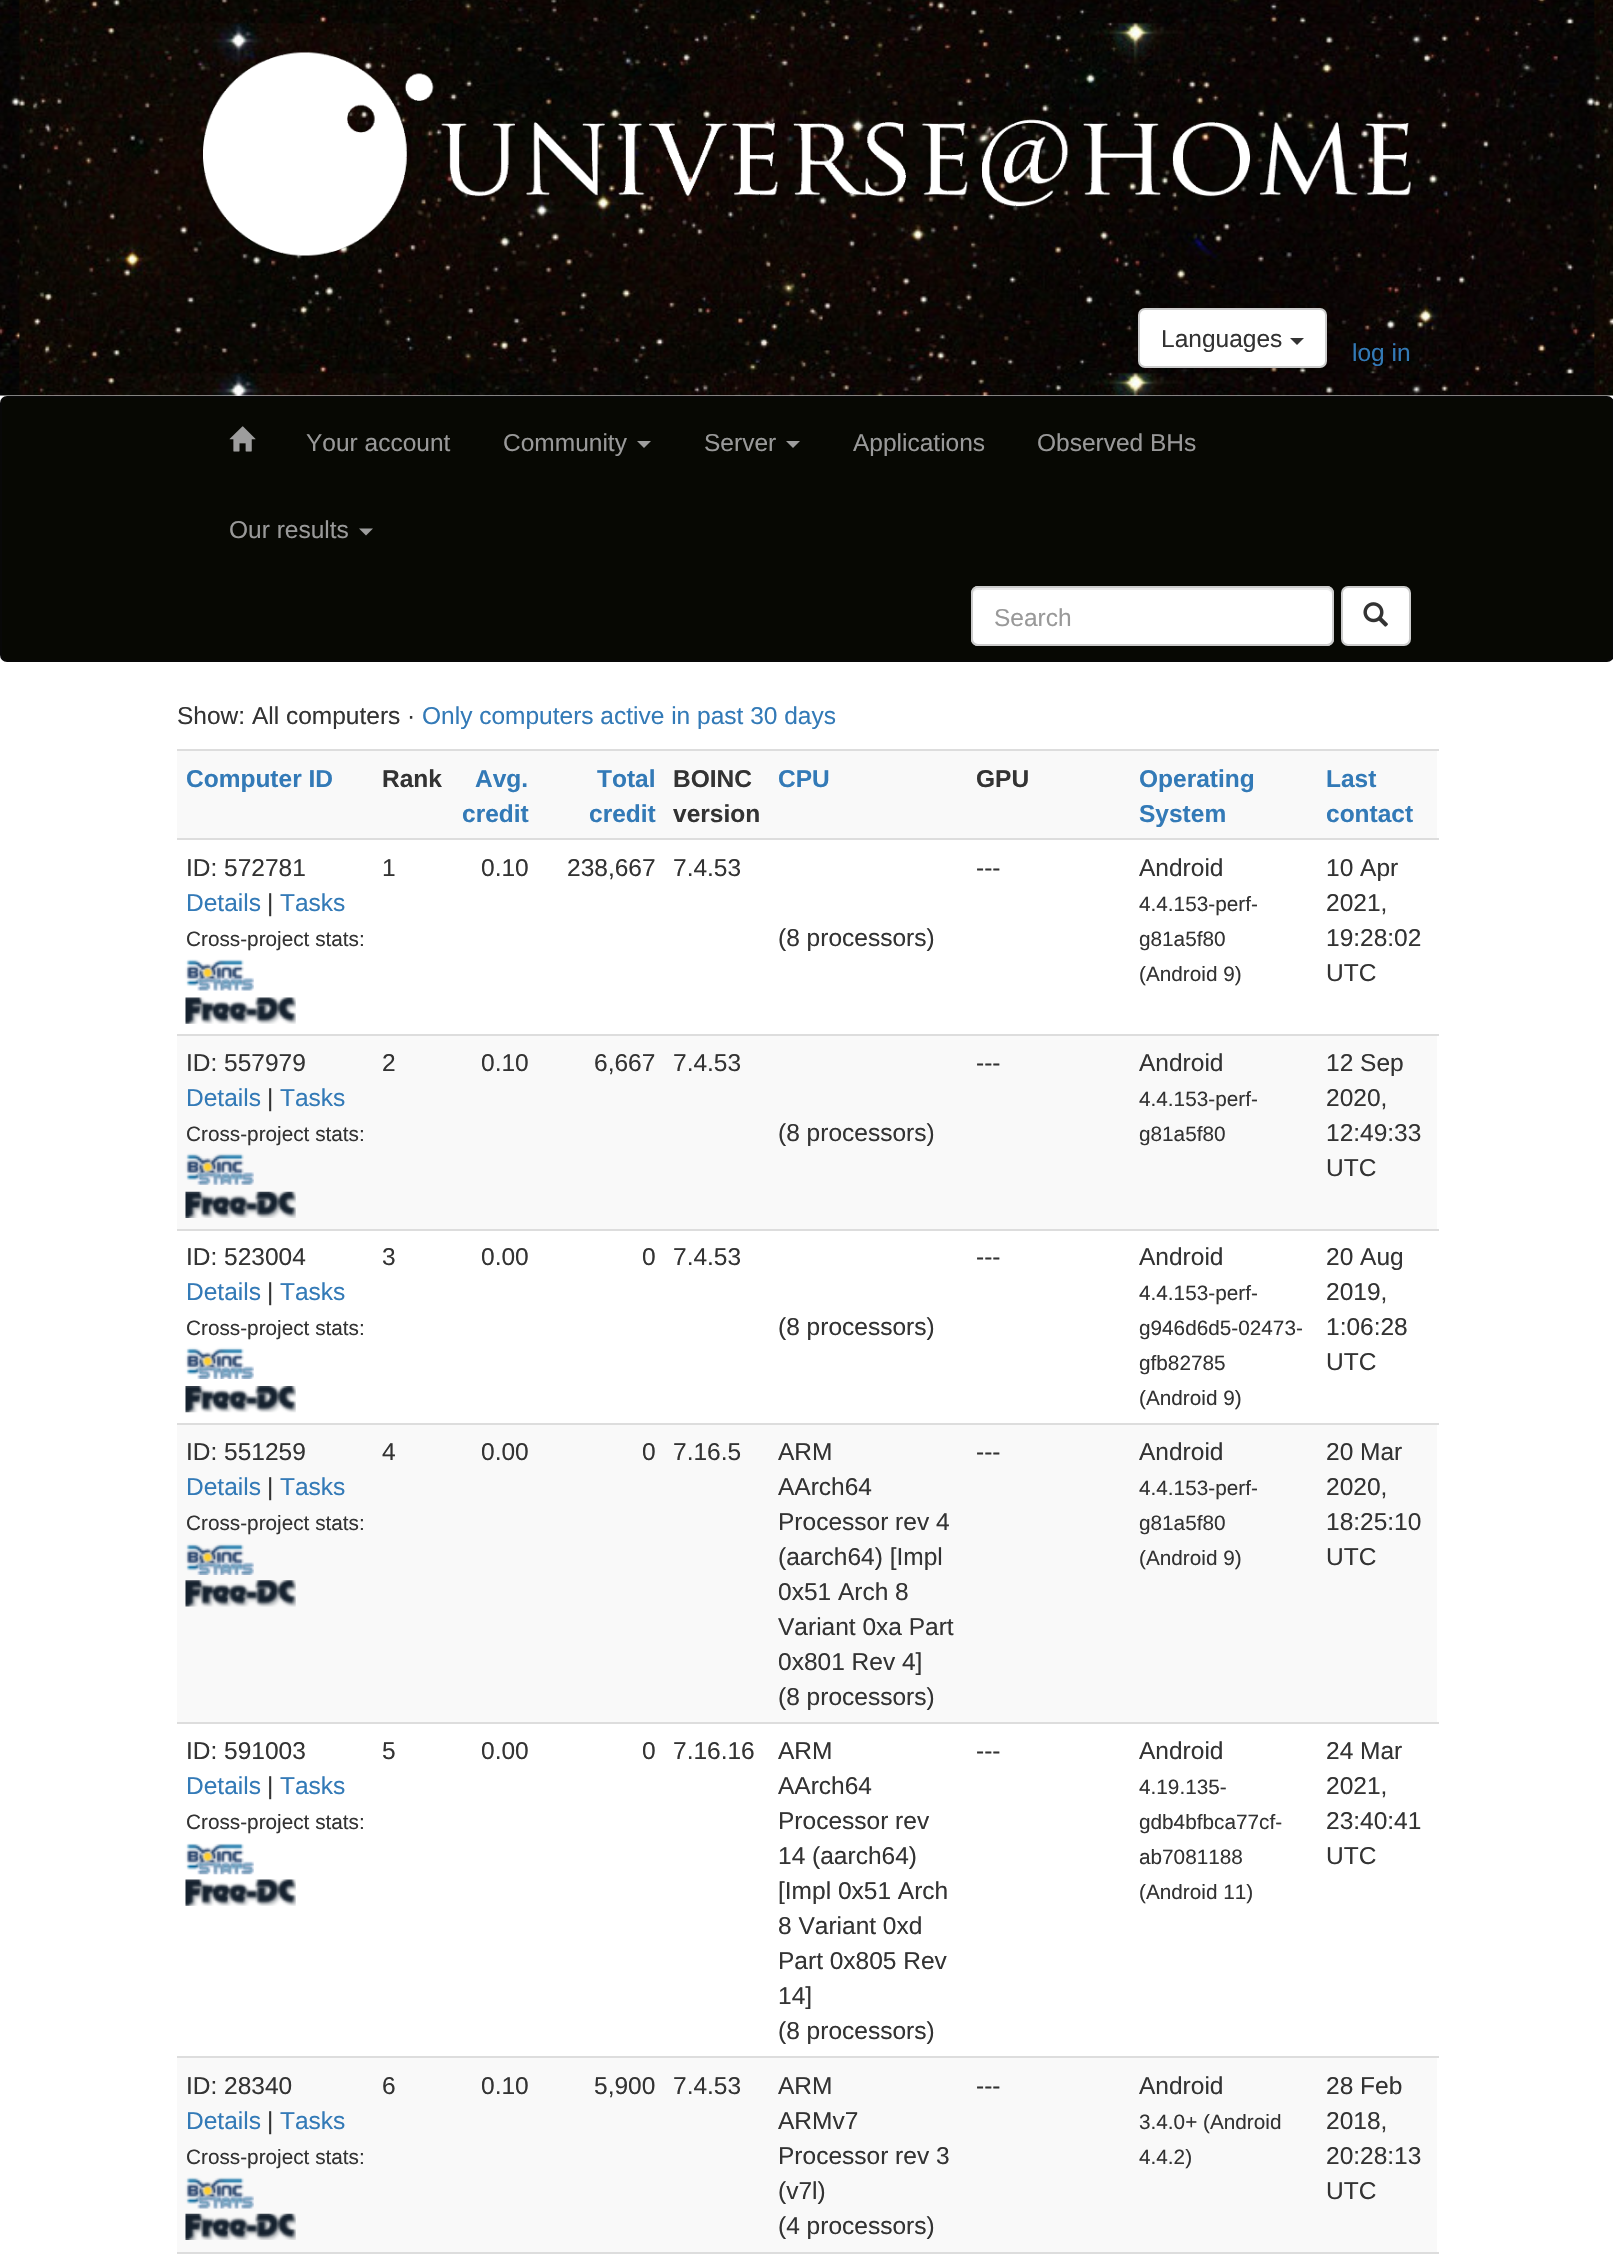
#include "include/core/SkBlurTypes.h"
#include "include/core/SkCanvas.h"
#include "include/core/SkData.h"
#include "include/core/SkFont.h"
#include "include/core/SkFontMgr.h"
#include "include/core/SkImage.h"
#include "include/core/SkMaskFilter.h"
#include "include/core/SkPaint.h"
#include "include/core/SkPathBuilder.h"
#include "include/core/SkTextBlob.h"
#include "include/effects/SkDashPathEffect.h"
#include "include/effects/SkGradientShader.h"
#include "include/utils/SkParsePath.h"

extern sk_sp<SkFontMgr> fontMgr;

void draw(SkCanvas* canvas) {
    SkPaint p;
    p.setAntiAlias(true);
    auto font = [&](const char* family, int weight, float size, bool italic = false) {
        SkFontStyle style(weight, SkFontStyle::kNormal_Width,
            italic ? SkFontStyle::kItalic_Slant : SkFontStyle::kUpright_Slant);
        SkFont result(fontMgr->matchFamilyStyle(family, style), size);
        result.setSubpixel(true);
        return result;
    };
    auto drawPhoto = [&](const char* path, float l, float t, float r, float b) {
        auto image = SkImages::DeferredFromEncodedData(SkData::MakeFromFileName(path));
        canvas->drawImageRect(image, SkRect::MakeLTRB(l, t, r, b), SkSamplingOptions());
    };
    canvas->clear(0xFFFFFFFF);
    drawPhoto("media/1.png", 0, 0, 1613, 396);
    drawPhoto("media/2.png", 203, 52, 1411, 256);
    p.setColor(0xFFFFFFFF);
    canvas->drawRoundRect(SkRect::MakeLTRB(1139, 309, 1326, 367), 6, 6, p);
    p.setStyle(SkPaint::kStroke_Style);
    p.setStrokeWidth(2);
    p.setColor(0xFFCCCCCC);
    canvas->drawRoundRect(SkRect::MakeLTRB(1139, 309, 1326, 367), 6, 6, p);
    auto font1 = font("Liberation Sans", 400, 24.5f);
    p.setStyle(SkPaint::kFill_Style);
    p.setColor(0xFF333333);
    canvas->drawString("Languages", 1161, 347, font1, p);
    canvas->drawPath(SkPathBuilder().moveTo(1290, 338).lineTo(1304, 338).lineTo(1297, 345).close().detach(), p);
    p.setColor(0xFF337AB7);
    canvas->drawString("log in", 1352, 361, font1, p);
    p.setColor(0xFF070803);
    canvas->drawRoundRect(SkRect::MakeLTRB(1, 397, 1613, 661), 6, 6, p);
    p.setStyle(SkPaint::kStroke_Style);
    p.setColor(0xFF080808);
    canvas->drawRoundRect(SkRect::MakeLTRB(1, 397, 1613, 661), 6, 6, p);
    drawPhoto("media/3.png", 229, 426, 256, 452);
    p.setStyle(SkPaint::kFill_Style);
    p.setColor(0xFF999999);
    canvas->drawString("Your account", 306, 451, font1, p);
    canvas->drawString("Community", 503, 451, font1, p);
    p.setColor(0xFF9D9D9D);
    canvas->drawPath(SkPathBuilder().moveTo(637, 441).lineTo(651, 441).lineTo(644, 448).close().detach(), p);
    p.setColor(0xFF999999);
    canvas->drawString("Server", 704, 451, font1, p);
    p.setColor(0xFF9D9D9D);
    canvas->drawPath(SkPathBuilder().moveTo(786, 441).lineTo(800, 441).lineTo(793, 448).close().detach(), p);
    p.setColor(0xFF999999);
    {
        const struct { const char* s; float x, y; } items[] = {
            {"Applications", 853, 451},
            {"Observed BHs", 1037, 451},
            {"Our results", 229, 538},
        };
        for (auto [s, x, y] : items) {
            canvas->drawString(s, x, y, font1, p);
        }
    }
    p.setColor(0xFF9D9D9D);
    canvas->drawPath(SkPathBuilder().moveTo(359, 528.5f).lineTo(373, 528.5f).lineTo(366, 535.5f).close().detach(), p);
    p.setColor(0xFFFFFFFF);
    canvas->drawRoundRect(SkRect::MakeLTRB(971, 586, 1334, 646), 7, 7, p);
    p.setColor(0xFFECECEC);
    canvas->drawPath(SkPathBuilder().moveTo(978, 590).lineTo(1326, 590).cubicTo(1329, 590, 1332, 592, 1332, 595).cubicTo(1332, 592, 1331, 588, 1327, 588).lineTo(978, 588).cubicTo(974, 588, 973, 592, 973, 595).cubicTo(973, 592, 975, 590, 978, 590).close().detach(), p);
    p.setStyle(SkPaint::kStroke_Style);
    p.setColor(0xFFCCCCCC);
    canvas->drawRoundRect(SkRect::MakeLTRB(972, 587, 1333, 645), 6, 6, p);
    p.setStyle(SkPaint::kFill_Style);
    p.setColor(0xFF999999);
    canvas->drawString("Search", 994, 626, font1, p);
    p.setColor(0xFFFFFFFF);
    canvas->drawRoundRect(SkRect::MakeLTRB(1342, 587, 1410, 645), 6, 6, p);
    p.setStyle(SkPaint::kStroke_Style);
    p.setColor(0xFFCCCCCC);
    canvas->drawRoundRect(SkRect::MakeLTRB(1342, 587, 1410, 645), 6, 6, p);
    drawPhoto("media/4.png", 1363, 602, 1388, 627);
    p.setStyle(SkPaint::kFill_Style);
    p.setColor(0xFF333333);
    canvas->drawString("Show: All computers ·", 177, 724, font1, p);
    p.setColor(0xFF337AB7);
    canvas->drawString("Only computers active in past 30 days", 422, 724, font1, p);
    p.setColor(0xFFF9F9F9);
    canvas->drawRect(SkRect::MakeLTRB(177, 751, 1437, 838), p);
    auto font2 = font("Liberation Sans", 700, 24.5f);
    p.setColor(0xFF337AB7);
    canvas->drawString("Computer ID", 186, 787, font2, p);
    p.setColor(0xFF333333);
    canvas->drawString("Rank", 382, 787, font2, p);
    p.setColor(0xFF337AB7);
    {
        const struct { const char* s; float x, y; } items[] = {
            {"Avg.", 475, 787},
            {"credit", 462, 822},
            {"Total", 597, 787},
            {"credit", 589, 822},
        };
        for (auto [s, x, y] : items) {
            canvas->drawString(s, x, y, font2, p);
        }
    }
    p.setColor(0xFF333333);
    canvas->drawString("BOINC", 673, 787, font2, p);
    canvas->drawString("version", 673, 822, font2, p);
    p.setColor(0xFF337AB7);
    canvas->drawString("CPU", 778, 787, font2, p);
    p.setColor(0xFF333333);
    canvas->drawString("GPU", 976, 787, font2, p);
    p.setColor(0xFF337AB7);
    canvas->drawString("Operating", 1139, 787, font2, p);
    canvas->drawString("System", 1139, 822, font2, p);
    p.setColor(0xFFDDDDDD);
    canvas->drawRect(SkRect::MakeLTRB(177, 749, 1439, 751), p);
    p.setColor(0xFF337AB7);
    canvas->drawString("Last", 1326, 787, font2, p);
    canvas->drawString("contact", 1326, 822, font2, p);
    p.setColor(0xFF333333);
    canvas->drawString("ID: 572781", 186, 876, font1, p);
    p.setColor(0xFF337AB7);
    canvas->drawString("Details", 186, 911, font1, p);
    p.setColor(0xFF333333);
    canvas->drawString("|", 267, 911, font1, p);
    p.setColor(0xFF337AB7);
    canvas->drawString("Tasks", 280, 911, font1, p);
    auto font3 = font("Liberation Sans", 400, 20.75f);
    p.setColor(0xFF333333);
    canvas->drawString("Cross-project stats:", 186, 946, font3, p);
    drawPhoto("media/5.png", 185, 959, 254, 991);
    drawPhoto("media/6.png", 185, 997, 296, 1024);
    {
        const struct { const char* s; float x, y; } items[] = {
            {"1", 382, 876},
            {"0.10", 481, 876},
            {"238,667", 567, 876},
            {"7.4.53", 673, 876},
            {"---", 976, 876},
            {"Android", 1139, 876},
        };
        for (auto [s, x, y] : items) {
            canvas->drawString(s, x, y, font1, p);
        }
    }
    {
        const struct { const char* s; float x, y; } items[] = {
            {"4.4.153-perf-", 1139, 911},
            {"g81a5f80", 1139, 946},
            {"(Android 9)", 1139, 981},
        };
        for (auto [s, x, y] : items) {
            canvas->drawString(s, x, y, font3, p);
        }
    }
    p.setColor(0xFFDDDDDD);
    canvas->drawRect(SkRect::MakeLTRB(177, 838, 1439, 840), p);
    p.setColor(0xFF333333);
    {
        const struct { const char* s; float x, y; } items[] = {
            {"10 Apr", 1326, 876},
            {"2021,", 1326, 911},
            {"19:28:02", 1326, 946},
            {"UTC", 1326, 981},
            {"(8 processors)", 778, 946},
        };
        for (auto [s, x, y] : items) {
            canvas->drawString(s, x, y, font1, p);
        }
    }
    p.setColor(0xFFF9F9F9);
    canvas->drawRect(SkRect::MakeLTRB(177, 1036, 1437, 1229), p);
    p.setColor(0xFF333333);
    canvas->drawString("ID: 557979", 186, 1071, font1, p);
    p.setColor(0xFF337AB7);
    canvas->drawString("Details", 186, 1106, font1, p);
    p.setColor(0xFF333333);
    canvas->drawString("|", 267, 1106, font1, p);
    p.setColor(0xFF337AB7);
    canvas->drawString("Tasks", 280, 1106, font1, p);
    p.setColor(0xFF333333);
    canvas->drawString("Cross-project stats:", 186, 1141, font3, p);
    drawPhoto("media/7.png", 185, 1153, 254, 1185);
    drawPhoto("media/8.png", 185, 1191, 296, 1218);
    {
        const struct { const char* s; float x, y; } items[] = {
            {"2", 382, 1071},
            {"0.10", 481, 1071},
            {"6,667", 594, 1071},
            {"7.4.53", 673, 1071},
            {"---", 976, 1071},
            {"Android", 1139, 1071},
        };
        for (auto [s, x, y] : items) {
            canvas->drawString(s, x, y, font1, p);
        }
    }
    canvas->drawString("4.4.153-perf-", 1139, 1106, font3, p);
    canvas->drawString("g81a5f80", 1139, 1141, font3, p);
    p.setColor(0xFFDDDDDD);
    canvas->drawRect(SkRect::MakeLTRB(177, 1034, 1439, 1036), p);
    p.setColor(0xFF333333);
    {
        const struct { const char* s; float x, y; } items[] = {
            {"12 Sep", 1326, 1071},
            {"2020,", 1326, 1106},
            {"12:49:33", 1326, 1141},
            {"UTC", 1326, 1176},
            {"(8 processors)", 778, 1141},
            {"ID: 523004", 186, 1265},
        };
        for (auto [s, x, y] : items) {
            canvas->drawString(s, x, y, font1, p);
        }
    }
    p.setColor(0xFF337AB7);
    canvas->drawString("Details", 186, 1300, font1, p);
    p.setColor(0xFF333333);
    canvas->drawString("|", 267, 1300, font1, p);
    p.setColor(0xFF337AB7);
    canvas->drawString("Tasks", 280, 1300, font1, p);
    p.setColor(0xFF333333);
    canvas->drawString("Cross-project stats:", 186, 1335, font3, p);
    drawPhoto("media/9.png", 185, 1347, 254, 1379);
    drawPhoto("media/10.png", 185, 1386, 296, 1413);
    {
        const struct { const char* s; float x, y; } items[] = {
            {"3", 382, 1265},
            {"0.00", 481, 1265},
            {"0", 642, 1265},
            {"7.4.53", 673, 1265},
            {"---", 976, 1265},
            {"Android", 1139, 1265},
        };
        for (auto [s, x, y] : items) {
            canvas->drawString(s, x, y, font1, p);
        }
    }
    {
        const struct { const char* s; float x, y; } items[] = {
            {"4.4.153-perf-", 1139, 1300},
            {"g946d6d5-02473-", 1139, 1335},
            {"gfb82785", 1139, 1370},
            {"(Android 9)", 1139, 1405},
        };
        for (auto [s, x, y] : items) {
            canvas->drawString(s, x, y, font3, p);
        }
    }
    p.setColor(0xFFDDDDDD);
    canvas->drawRect(SkRect::MakeLTRB(177, 1229, 1439, 1231), p);
    p.setColor(0xFF333333);
    {
        const struct { const char* s; float x, y; } items[] = {
            {"20 Aug", 1326, 1265},
            {"2019,", 1326, 1300},
            {"1:06:28", 1326, 1335},
            {"UTC", 1326, 1370},
            {"(8 processors)", 778, 1335},
        };
        for (auto [s, x, y] : items) {
            canvas->drawString(s, x, y, font1, p);
        }
    }
    p.setColor(0xFFF9F9F9);
    canvas->drawRect(SkRect::MakeLTRB(177, 1425, 1437, 1722), p);
    p.setColor(0xFF333333);
    canvas->drawString("ID: 551259", 186, 1460, font1, p);
    p.setColor(0xFF337AB7);
    canvas->drawString("Details", 186, 1495, font1, p);
    p.setColor(0xFF333333);
    canvas->drawString("|", 267, 1495, font1, p);
    p.setColor(0xFF337AB7);
    canvas->drawString("Tasks", 280, 1495, font1, p);
    p.setColor(0xFF333333);
    canvas->drawString("Cross-project stats:", 186, 1530, font3, p);
    drawPhoto("media/11.png", 185, 1543, 254, 1575);
    drawPhoto("media/12.png", 185, 1580, 296, 1607);
    {
        const struct { const char* s; float x, y; } items[] = {
            {"4", 382, 1460},
            {"0.00", 481, 1460},
            {"0", 642, 1460},
            {"7.16.5", 673, 1460},
            {"ARM", 778, 1460},
            {"AArch64", 778, 1495},
            {"Processor rev 4", 778, 1530},
            {"(aarch64) [Impl", 778, 1565},
            {"0x51 Arch 8", 778, 1600},
            {"Variant 0xa Part", 778, 1635},
            {"0x801 Rev 4]", 778, 1670},
            {"(8 processors)", 778, 1705},
            {"---", 976, 1460},
            {"Android", 1139, 1460},
        };
        for (auto [s, x, y] : items) {
            canvas->drawString(s, x, y, font1, p);
        }
    }
    {
        const struct { const char* s; float x, y; } items[] = {
            {"4.4.153-perf-", 1139, 1495},
            {"g81a5f80", 1139, 1530},
            {"(Android 9)", 1139, 1565},
        };
        for (auto [s, x, y] : items) {
            canvas->drawString(s, x, y, font3, p);
        }
    }
    p.setColor(0xFFDDDDDD);
    canvas->drawRect(SkRect::MakeLTRB(177, 1423, 1439, 1425), p);
    p.setColor(0xFF333333);
    {
        const struct { const char* s; float x, y; } items[] = {
            {"20 Mar", 1326, 1460},
            {"2020,", 1326, 1495},
            {"18:25:10", 1326, 1530},
            {"UTC", 1326, 1565},
            {"ID: 591003", 186, 1759},
        };
        for (auto [s, x, y] : items) {
            canvas->drawString(s, x, y, font1, p);
        }
    }
    p.setColor(0xFF337AB7);
    canvas->drawString("Details", 186, 1794, font1, p);
    p.setColor(0xFF333333);
    canvas->drawString("|", 267, 1794, font1, p);
    p.setColor(0xFF337AB7);
    canvas->drawString("Tasks", 280, 1794, font1, p);
    p.setColor(0xFF333333);
    canvas->drawString("Cross-project stats:", 186, 1829, font3, p);
    drawPhoto("media/13.png", 185, 1843, 254, 1875);
    drawPhoto("media/14.png", 185, 1879, 296, 1906);
    {
        const struct { const char* s; float x, y; } items[] = {
            {"5", 382, 1759},
            {"0.00", 481, 1759},
            {"0", 642, 1759},
            {"7.16.16", 673, 1759},
            {"ARM", 778, 1759},
            {"AArch64", 778, 1794},
            {"Processor rev", 778, 1829},
            {"14 (aarch64)", 778, 1864},
            {"[Impl 0x51 Arch", 778, 1899},
            {"8 Variant 0xd", 778, 1934},
            {"Part 0x805 Rev", 778, 1969},
            {"14]", 778, 2004},
            {"(8 processors)", 778, 2039},
            {"---", 976, 1759},
            {"Android", 1139, 1759},
        };
        for (auto [s, x, y] : items) {
            canvas->drawString(s, x, y, font1, p);
        }
    }
    {
        const struct { const char* s; float x, y; } items[] = {
            {"4.19.135-", 1139, 1794},
            {"gdb4bfbca77cf-", 1139, 1829},
            {"ab7081188", 1139, 1864},
            {"(Android 11)", 1139, 1899},
        };
        for (auto [s, x, y] : items) {
            canvas->drawString(s, x, y, font3, p);
        }
    }
    p.setColor(0xFFDDDDDD);
    canvas->drawRect(SkRect::MakeLTRB(177, 1722, 1439, 1724), p);
    p.setColor(0xFF333333);
    {
        const struct { const char* s; float x, y; } items[] = {
            {"24 Mar", 1326, 1759},
            {"2021,", 1326, 1794},
            {"23:40:41", 1326, 1829},
            {"UTC", 1326, 1864},
        };
        for (auto [s, x, y] : items) {
            canvas->drawString(s, x, y, font1, p);
        }
    }
    p.setColor(0xFFF9F9F9);
    canvas->drawRect(SkRect::MakeLTRB(177, 2058, 1437, 2252), p);
    p.setColor(0xFF333333);
    canvas->drawString("ID: 28340", 186, 2094, font1, p);
    p.setColor(0xFF337AB7);
    canvas->drawString("Details", 186, 2129, font1, p);
    p.setColor(0xFF333333);
    canvas->drawString("|", 267, 2129, font1, p);
    p.setColor(0xFF337AB7);
    canvas->drawString("Tasks", 280, 2129, font1, p);
    p.setColor(0xFF333333);
    canvas->drawString("Cross-project stats:", 186, 2164, font3, p);
    drawPhoto("media/15.png", 185, 2177, 254, 2209);
    drawPhoto("media/8.png", 185, 2213, 296, 2240);
    {
        const struct { const char* s; float x, y; } items[] = {
            {"6", 382, 2094},
            {"0.10", 481, 2094},
            {"5,900", 594, 2094},
            {"7.4.53", 673, 2094},
            {"ARM", 778, 2094},
            {"ARMv7", 778, 2129},
            {"Processor rev 3", 778, 2164},
            {"(v7l)", 778, 2199},
            {"(4 processors)", 778, 2234},
            {"---", 976, 2094},
            {"Android", 1139, 2094},
        };
        for (auto [s, x, y] : items) {
            canvas->drawString(s, x, y, font1, p);
        }
    }
    canvas->drawString("3.4.0+ (Android", 1139, 2129, font3, p);
    canvas->drawString("4.4.2)", 1139, 2164, font3, p);
    p.setColor(0xFFDDDDDD);
    canvas->drawRect(SkRect::MakeLTRB(177, 2056, 1439, 2058), p);
    p.setColor(0xFF333333);
    {
        const struct { const char* s; float x, y; } items[] = {
            {"28 Feb", 1326, 2094},
            {"2018,", 1326, 2129},
            {"20:28:13", 1326, 2164},
            {"UTC", 1326, 2199},
        };
        for (auto [s, x, y] : items) {
            canvas->drawString(s, x, y, font1, p);
        }
    }
    p.setColor(0xFFDDDDDD);
    canvas->drawRect(SkRect::MakeLTRB(177, 2252, 1439, 2254), p);
}
